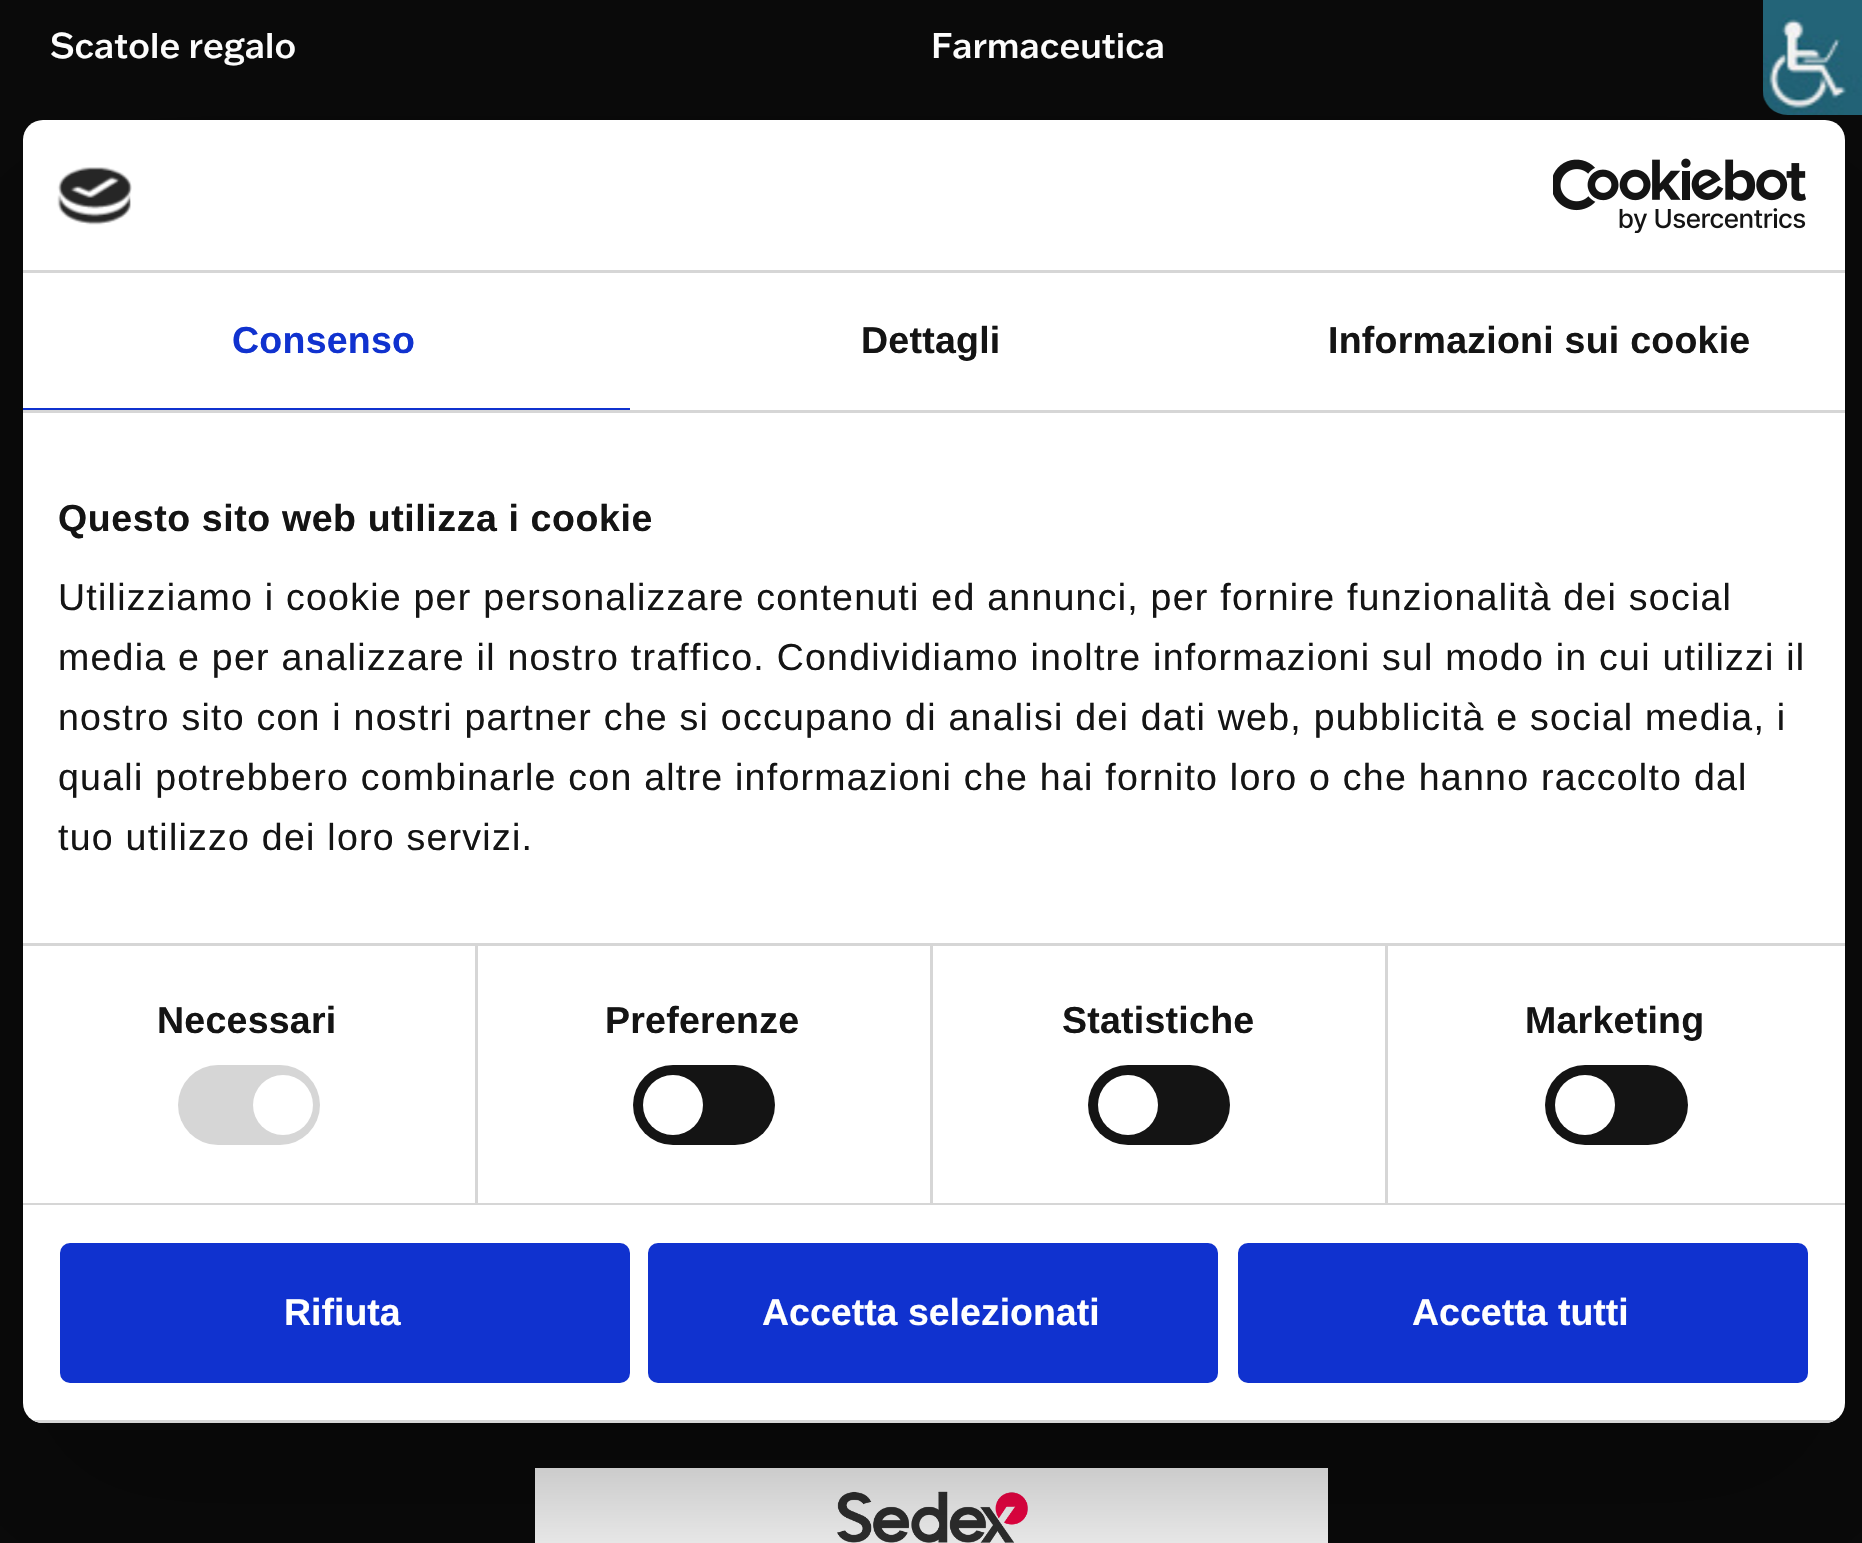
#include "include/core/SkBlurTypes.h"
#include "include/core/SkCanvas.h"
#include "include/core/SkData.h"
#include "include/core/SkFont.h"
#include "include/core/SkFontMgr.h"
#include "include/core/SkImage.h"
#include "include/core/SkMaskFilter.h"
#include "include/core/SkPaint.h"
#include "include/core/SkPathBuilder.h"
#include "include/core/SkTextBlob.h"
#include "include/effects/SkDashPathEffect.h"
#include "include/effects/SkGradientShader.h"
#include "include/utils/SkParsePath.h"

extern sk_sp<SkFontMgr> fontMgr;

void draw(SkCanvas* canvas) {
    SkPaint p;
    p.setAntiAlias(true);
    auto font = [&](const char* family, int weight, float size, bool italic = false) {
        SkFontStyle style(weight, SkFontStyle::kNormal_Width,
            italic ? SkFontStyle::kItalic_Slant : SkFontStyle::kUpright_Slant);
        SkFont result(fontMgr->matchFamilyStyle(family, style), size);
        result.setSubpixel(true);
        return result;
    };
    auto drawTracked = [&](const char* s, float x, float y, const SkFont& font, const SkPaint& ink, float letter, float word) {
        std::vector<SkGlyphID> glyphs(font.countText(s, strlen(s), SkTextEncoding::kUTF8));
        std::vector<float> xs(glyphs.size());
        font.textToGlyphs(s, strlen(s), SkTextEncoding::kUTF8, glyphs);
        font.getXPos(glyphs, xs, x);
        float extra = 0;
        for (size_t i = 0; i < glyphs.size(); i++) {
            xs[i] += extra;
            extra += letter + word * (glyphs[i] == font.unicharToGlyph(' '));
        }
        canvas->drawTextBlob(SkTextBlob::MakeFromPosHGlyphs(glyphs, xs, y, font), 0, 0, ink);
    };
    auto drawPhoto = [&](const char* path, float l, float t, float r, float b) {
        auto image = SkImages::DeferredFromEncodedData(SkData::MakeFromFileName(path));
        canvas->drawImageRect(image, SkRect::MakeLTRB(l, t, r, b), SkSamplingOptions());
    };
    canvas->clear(0xFF0A0A0A);
    auto font1 = font("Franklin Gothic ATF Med", 500, 35);
    p.setColor(0xFFFFFFFF);
    canvas->drawString("Scatole regalo", 50, 58, font1, p);
    canvas->drawString("Farmaceutica", 931, 58, font1, p);
    canvas->drawRect(SkRect::MakeLTRB(535, 1468, 1328, 1543), p);
    drawPhoto("media/1.png", 837, 1491, 1028, 1543);
    drawPhoto("media/2.png", 1763, 0, 1862, 115);
    canvas->save();
    canvas->clipPath(SkPathBuilder(SkPathFillType::kEvenOdd).moveTo(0, 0).lineTo(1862, 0).lineTo(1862, 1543).lineTo(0, 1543).close().moveTo(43, 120).lineTo(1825, 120).cubicTo(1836, 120, 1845, 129, 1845, 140).lineTo(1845, 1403).cubicTo(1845, 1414, 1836, 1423, 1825, 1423).lineTo(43, 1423).cubicTo(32, 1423, 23, 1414, 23, 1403).lineTo(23, 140).cubicTo(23, 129, 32, 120, 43, 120).close().detach(), true);
    p.setColor(0x4D000000);
    p.setMaskFilter(SkMaskFilter::MakeBlur(kNormal_SkBlurStyle, 85));
    canvas->drawRoundRect(SkRect::MakeLTRB(23, 200, 1845, 1503), 20, 20, p);
    p.setMaskFilter(nullptr);
    canvas->restore();
    p.setColor(0xFFFFFFFF);
    canvas->drawRoundRect(SkRect::MakeLTRB(23, 120, 1845, 1423), 20, 20, p);
    p.setColor(0xFFD6D6D6);
    canvas->drawRect(SkRect::MakeLTRB(23, 270, 1845, 273), p);
    drawPhoto("media/3.png", 57, 167, 132, 225);
    drawPhoto("media/4.png", 1553, 158, 1806, 233);
    canvas->drawRect(SkRect::MakeLTRB(23, 410, 1845, 413), p);
    p.setColor(0xFF1032CF);
    canvas->drawRect(SkRect::MakeLTRB(23, 408, 630, 410), p);
    auto font2 = font("Liberation Sans", 700, 37.5f);
    drawTracked("Consenso", 232, 353, font2, p, 0.25f, 0);
    p.setColor(0xFF141414);
    drawTracked("Dettagli", 861, 353, font2, p, 0.25f, 0);
    drawTracked("Informazioni sui cookie", 1328, 353, font2, p, 0.25f, 0);
    {
        const struct { float l, t, r, b; SkColor color; } items[] = {
            {475, 945, 478, 1203, 0xFFD6D6D6},
            {930, 945, 933, 1203, 0xFFD6D6D6},
            {1385, 945, 1388, 1203, 0xFFD6D6D6},
            {23, 943, 1845, 946, 0xFFD6D6D6},
        };
        for (auto [l, t, r, b, color] : items) {
            p.setColor(color);
            canvas->drawRect(SkRect::MakeLTRB(l, t, r, b), p);
        }
    }
    p.setColor(0xFF141414);
    drawTracked("Questo sito web utilizza i cookie", 58, 531, font2, p, 0.6f, 0);
    auto font3 = font("Liberation Sans", 400, 37.5f);
    {
        const struct { const char* s; float x, y; } items[] = {
            {"Utilizziamo i cookie per personalizzare contenuti ed annunci, per fornire funzionalità dei social", 58, 610},
            {"media e per analizzare il nostro traffico. Condividiamo inoltre informazioni sul modo in cui utilizzi il", 58, 670},
            {"nostro sito con i nostri partner che si occupano di analisi dei dati web, pubblicità e social media, i", 58, 730},
            {"quali potrebbero combinarle con altre informazioni che hai fornito loro o che hanno raccolto dal", 58, 790},
            {"tuo utilizzo dei loro servizi.", 58, 850},
        };
        for (auto [s, x, y] : items) {
            drawTracked(s, x, y, font3, p, 1.25f, 0);
        }
    }
    p.setColor(0xFFD6D6D6);
    canvas->drawRect(SkRect::MakeLTRB(23, 1203, 1845, 1205), p);
    p.setColor(0xFF141414);
    drawTracked("Necessari", 157, 1033, font2, p, 0.25f, 0);
    p.setColor(0xFFD6D6D6);
    canvas->drawRoundRect(SkRect::MakeLTRB(178, 1065, 320, 1145), 40, 40, p);
    p.setColor(0xFFFFFFFF);
    canvas->drawCircle(283, 1105, 30, p);
    p.setColor(0xFF141414);
    drawTracked("Preferenze", 605, 1033, font2, p, 0.25f, 0);
    canvas->drawRoundRect(SkRect::MakeLTRB(633, 1065, 775, 1145), 40, 40, p);
    p.setColor(0xFFFFFFFF);
    canvas->drawCircle(673, 1105, 30, p);
    p.setColor(0xFF141414);
    drawTracked("Statistiche", 1062, 1033, font2, p, 0.25f, 0);
    canvas->drawRoundRect(SkRect::MakeLTRB(1088, 1065, 1230, 1145), 40, 40, p);
    p.setColor(0xFFFFFFFF);
    canvas->drawCircle(1128, 1105, 30, p);
    p.setColor(0xFF141414);
    drawTracked("Marketing", 1525, 1033, font2, p, 0.25f, 0);
    canvas->drawRoundRect(SkRect::MakeLTRB(1545, 1065, 1688, 1145), 40, 40, p);
    p.setColor(0xFFFFFFFF);
    canvas->drawCircle(1585, 1105, 30, p);
    canvas->save();
    canvas->clipPath(SkPathBuilder().moveTo(43, 120).lineTo(1825, 120).cubicTo(1836, 120, 1845, 129, 1845, 140).lineTo(1845, 1403).cubicTo(1845, 1414, 1836, 1423, 1825, 1423).lineTo(43, 1423).cubicTo(32, 1423, 23, 1414, 23, 1403).lineTo(23, 140).cubicTo(23, 129, 32, 120, 43, 120).close().detach(), true);
    p.setColor(0xFFD6D6D6);
    canvas->drawRect(SkRect::MakeLTRB(32, 1420, 1836, 1423), p);
    canvas->restore();
    p.setColor(0xFF1032CF);
    canvas->drawRoundRect(SkRect::MakeLTRB(62.5f, 1245.5f, 627.5f, 1380.5f), 7.5f, 7.5f, p);
    p.setStyle(SkPaint::kStroke_Style);
    p.setStrokeWidth(5);
    canvas->drawRoundRect(SkRect::MakeLTRB(62.5f, 1245.5f, 627.5f, 1380.5f), 7.5f, 7.5f, p);
    p.setStyle(SkPaint::kFill_Style);
    p.setColor(0xFFFFFFFF);
    canvas->drawString("Rifiuta", 284, 1325, font2, p);
    p.setColor(0xFF1032CF);
    canvas->drawRoundRect(SkRect::MakeLTRB(650.5f, 1245.5f, 1215.5f, 1380.5f), 7.5f, 7.5f, p);
    p.setStyle(SkPaint::kStroke_Style);
    canvas->drawRoundRect(SkRect::MakeLTRB(650.5f, 1245.5f, 1215.5f, 1380.5f), 7.5f, 7.5f, p);
    p.setStyle(SkPaint::kFill_Style);
    p.setColor(0xFFFFFFFF);
    canvas->drawString("Accetta selezionati", 762, 1325, font2, p);
    p.setColor(0xFF1032CF);
    canvas->drawRoundRect(SkRect::MakeLTRB(1240.5f, 1245.5f, 1805.5f, 1380.5f), 7.5f, 7.5f, p);
    p.setStyle(SkPaint::kStroke_Style);
    canvas->drawRoundRect(SkRect::MakeLTRB(1240.5f, 1245.5f, 1805.5f, 1380.5f), 7.5f, 7.5f, p);
    p.setStyle(SkPaint::kFill_Style);
    p.setColor(0xFFFFFFFF);
    canvas->drawString("Accetta tutti", 1412, 1325, font2, p);
}
